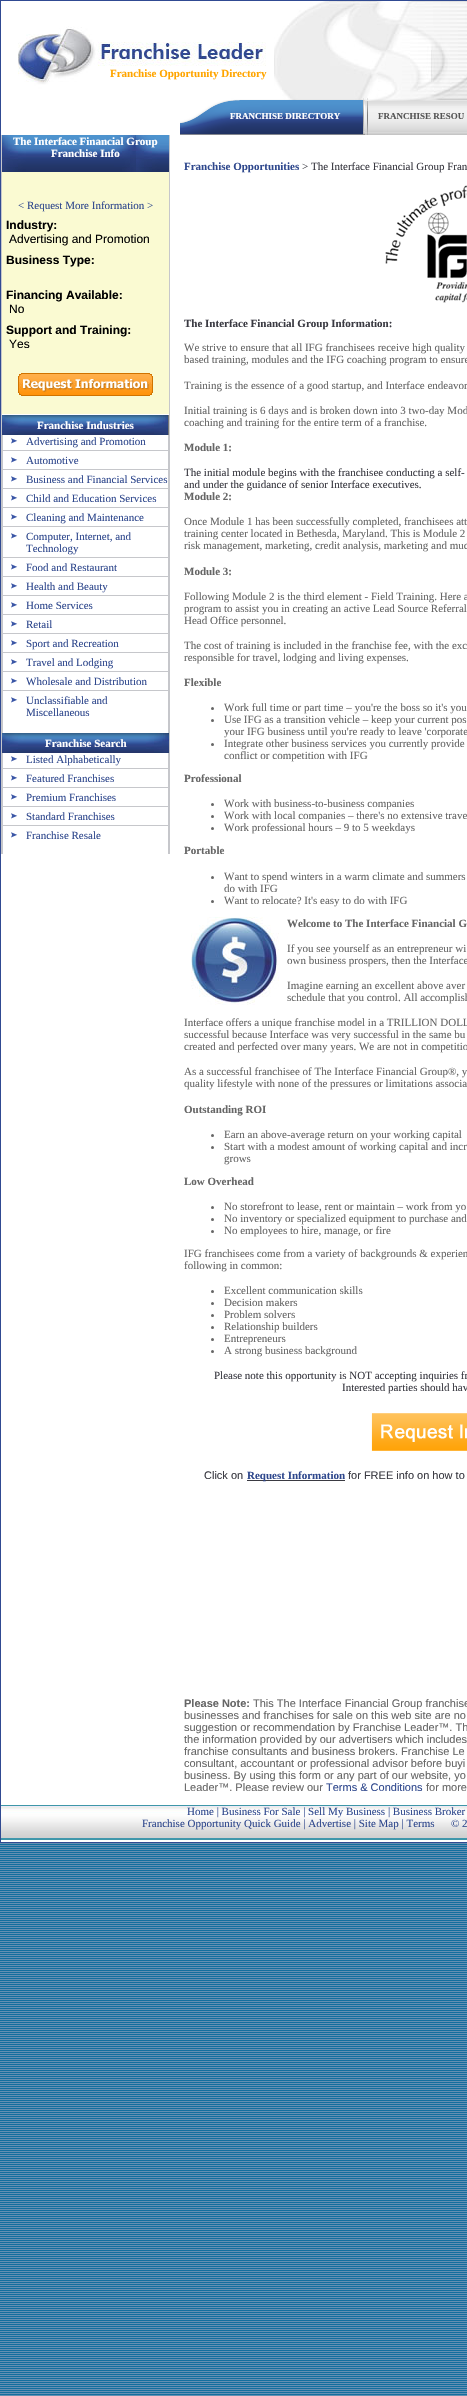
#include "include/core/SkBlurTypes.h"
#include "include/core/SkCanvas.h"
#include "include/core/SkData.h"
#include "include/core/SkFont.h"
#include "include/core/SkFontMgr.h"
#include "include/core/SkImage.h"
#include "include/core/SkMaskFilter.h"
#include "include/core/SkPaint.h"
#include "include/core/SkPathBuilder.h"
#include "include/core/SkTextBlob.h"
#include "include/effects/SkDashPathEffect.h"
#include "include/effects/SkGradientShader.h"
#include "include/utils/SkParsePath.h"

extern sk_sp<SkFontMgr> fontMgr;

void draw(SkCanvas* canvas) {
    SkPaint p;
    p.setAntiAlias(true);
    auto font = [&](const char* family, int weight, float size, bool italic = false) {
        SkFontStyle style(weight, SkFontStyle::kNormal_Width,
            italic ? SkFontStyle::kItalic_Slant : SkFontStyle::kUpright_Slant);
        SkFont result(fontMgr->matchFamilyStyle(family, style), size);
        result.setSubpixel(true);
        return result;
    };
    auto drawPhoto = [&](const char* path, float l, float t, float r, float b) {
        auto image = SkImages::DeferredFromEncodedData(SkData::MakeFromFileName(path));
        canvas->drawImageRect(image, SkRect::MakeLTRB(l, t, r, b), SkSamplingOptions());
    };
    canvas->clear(0xFFFFFFFF);
    drawPhoto("media/1.png", 0, 1843, 467, 2396);
    p.setColor(0xFF304A92);
    canvas->drawRect(SkRect::MakeLTRB(0, 0, 467, 1), p);
    canvas->drawRect(SkRect::MakeLTRB(0, 0, 1, 1805), p);
    drawPhoto("media/2.png", 287, 1, 467, 26);
    drawPhoto("media/3.png", 18, 26, 467, 100);
    auto font1 = font("Liberation Serif", 700, 11);
    p.setColor(0xFFFFA500);
    canvas->drawString("Franchise Opportunity Directory", 110, 77, font1, p);
    drawPhoto("media/4.png", 180, 100, 365, 135);
    auto font2 = font("Liberation Serif", 700, 9);
    p.setColor(0xFFFFFFFF);
    canvas->drawString("FRANCHISE DIRECTORY", 230, 119, font2, p);
    drawPhoto("media/5.png", 365, 100, 467, 135);
    p.setColor(0xFF555555);
    canvas->drawString("FRANCHISE RESOU", 378, 119, font2, p);
    p.setColor(0xFFC6C7CB);
    canvas->drawRect(SkRect::MakeLTRB(169, 135, 170, 854), p);
    canvas->drawRect(SkRect::MakeLTRB(1, 135, 2, 854), p);
    drawPhoto("media/6.png", 2, 135, 169, 172);
    p.setColor(0xFFFFFFFF);
    canvas->drawString("The Interface Financial Group", 13, 145, font1, p);
    canvas->drawString("Franchise Info", 51, 157, font1, p);
    p.setColor(0xFFFAFAD2);
    canvas->drawRect(SkRect::MakeLTRB(2, 172, 169, 414), p);
    auto font3 = font("Liberation Serif", 400, 11);
    p.setColor(0xFF2F488D);
    canvas->drawString("< Request More Information >", 18, 209, font3, p);
    auto font4 = font("Liberation Sans", 700, 12);
    p.setColor(0xFF000000);
    canvas->drawString("Industry:", 6, 229, font4, p);
    auto font5 = font("Liberation Sans", 400, 12);
    canvas->drawString("Advertising and Promotion", 9, 243, font5, p);
    canvas->drawString("Business Type:", 6, 264, font4, p);
    canvas->drawString("Financing Available:", 6, 299, font4, p);
    canvas->drawString("No", 9, 313, font5, p);
    canvas->drawString("Support and Training:", 6, 334, font4, p);
    canvas->drawString("Yes", 9, 348, font5, p);
    drawPhoto("media/7.png", 18, 373, 153, 396);
    p.setColor(0xFF747575);
    canvas->drawRect(SkRect::MakeLTRB(168, 415, 169, 435), p);
    drawPhoto("media/8.png", 2, 415, 168, 435);
    p.setColor(0xFFFFFFFF);
    canvas->drawString("Franchise Industries", 37, 429, font1, p);
    p.setColor(0xFFC6C7CB);
    canvas->drawRect(SkRect::MakeLTRB(168, 435, 169, 733), p);
    canvas->drawRect(SkRect::MakeLTRB(2, 435, 3, 733), p);
    drawPhoto("media/9.png", 11, 438, 18, 444);
    p.setColor(0xFF2F488D);
    canvas->drawString("Advertising and Promotion", 26, 445, font3, p);
    p.setColor(0xFFC6C7CB);
    canvas->drawRect(SkRect::MakeLTRB(3, 450, 168, 451), p);
    drawPhoto("media/9.png", 11, 457, 18, 463);
    p.setColor(0xFF2F488D);
    canvas->drawString("Automotive", 26, 464, font3, p);
    p.setColor(0xFFC6C7CB);
    canvas->drawRect(SkRect::MakeLTRB(3, 469, 168, 470), p);
    drawPhoto("media/9.png", 11, 476, 18, 482);
    p.setColor(0xFF2F488D);
    canvas->drawString("Business and Financial Services", 26, 483, font3, p);
    p.setColor(0xFFC6C7CB);
    canvas->drawRect(SkRect::MakeLTRB(3, 488, 168, 489), p);
    drawPhoto("media/9.png", 11, 495, 18, 501);
    p.setColor(0xFF2F488D);
    canvas->drawString("Child and Education Services", 26, 502, font3, p);
    p.setColor(0xFFC6C7CB);
    canvas->drawRect(SkRect::MakeLTRB(3, 507, 168, 508), p);
    drawPhoto("media/9.png", 11, 514, 18, 520);
    p.setColor(0xFF2F488D);
    canvas->drawString("Cleaning and Maintenance", 26, 521, font3, p);
    p.setColor(0xFFC6C7CB);
    canvas->drawRect(SkRect::MakeLTRB(3, 526, 168, 527), p);
    drawPhoto("media/9.png", 11, 533, 18, 539);
    p.setColor(0xFF2F488D);
    canvas->drawString("Computer, Internet, and", 26, 540, font3, p);
    canvas->drawString("Technology", 26, 552, font3, p);
    p.setColor(0xFFC6C7CB);
    canvas->drawRect(SkRect::MakeLTRB(3, 557, 168, 558), p);
    drawPhoto("media/9.png", 11, 564, 18, 570);
    p.setColor(0xFF2F488D);
    canvas->drawString("Food and Restaurant", 26, 571, font3, p);
    p.setColor(0xFFC6C7CB);
    canvas->drawRect(SkRect::MakeLTRB(3, 576, 168, 577), p);
    drawPhoto("media/9.png", 11, 583, 18, 589);
    p.setColor(0xFF2F488D);
    canvas->drawString("Health and Beauty", 26, 590, font3, p);
    p.setColor(0xFFC6C7CB);
    canvas->drawRect(SkRect::MakeLTRB(3, 595, 168, 596), p);
    drawPhoto("media/9.png", 11, 602, 18, 608);
    p.setColor(0xFF2F488D);
    canvas->drawString("Home Services", 26, 609, font3, p);
    p.setColor(0xFFC6C7CB);
    canvas->drawRect(SkRect::MakeLTRB(3, 614, 168, 615), p);
    drawPhoto("media/9.png", 11, 621, 18, 627);
    p.setColor(0xFF2F488D);
    canvas->drawString("Retail", 26, 628, font3, p);
    p.setColor(0xFFC6C7CB);
    canvas->drawRect(SkRect::MakeLTRB(3, 633, 168, 634), p);
    drawPhoto("media/9.png", 11, 640, 18, 646);
    p.setColor(0xFF2F488D);
    canvas->drawString("Sport and Recreation", 26, 647, font3, p);
    p.setColor(0xFFC6C7CB);
    canvas->drawRect(SkRect::MakeLTRB(3, 652, 168, 653), p);
    drawPhoto("media/9.png", 11, 659, 18, 665);
    p.setColor(0xFF2F488D);
    canvas->drawString("Travel and Lodging", 26, 666, font3, p);
    p.setColor(0xFFC6C7CB);
    canvas->drawRect(SkRect::MakeLTRB(3, 671, 168, 672), p);
    drawPhoto("media/9.png", 11, 678, 18, 684);
    p.setColor(0xFF2F488D);
    canvas->drawString("Wholesale and Distribution", 26, 685, font3, p);
    p.setColor(0xFFC6C7CB);
    canvas->drawRect(SkRect::MakeLTRB(3, 690, 168, 691), p);
    drawPhoto("media/9.png", 11, 697, 18, 703);
    p.setColor(0xFF2F488D);
    canvas->drawString("Unclassifiable and", 26, 704, font3, p);
    canvas->drawString("Miscellaneous", 26, 716, font3, p);
    drawPhoto("media/10.png", 2, 733, 169, 753);
    p.setColor(0xFFFFFFFF);
    canvas->drawString("Franchise Search", 45, 747, font1, p);
    p.setColor(0xFFC6C7CB);
    canvas->drawRect(SkRect::MakeLTRB(168, 753, 169, 854), p);
    canvas->drawRect(SkRect::MakeLTRB(2, 753, 3, 854), p);
    drawPhoto("media/9.png", 11, 756, 18, 762);
    p.setColor(0xFF2F488D);
    canvas->drawString("Listed Alphabetically", 26, 763, font3, p);
    p.setColor(0xFFC6C7CB);
    canvas->drawRect(SkRect::MakeLTRB(3, 768, 168, 769), p);
    drawPhoto("media/9.png", 11, 775, 18, 781);
    p.setColor(0xFF2F488D);
    canvas->drawString("Featured Franchises", 26, 782, font3, p);
    p.setColor(0xFFC6C7CB);
    canvas->drawRect(SkRect::MakeLTRB(3, 787, 168, 788), p);
    drawPhoto("media/9.png", 11, 794, 18, 800);
    p.setColor(0xFF2F488D);
    canvas->drawString("Premium Franchises", 26, 801, font3, p);
    p.setColor(0xFFC6C7CB);
    canvas->drawRect(SkRect::MakeLTRB(3, 806, 168, 807), p);
    drawPhoto("media/9.png", 11, 813, 18, 819);
    p.setColor(0xFF2F488D);
    canvas->drawString("Standard Franchises", 26, 820, font3, p);
    p.setColor(0xFFC6C7CB);
    canvas->drawRect(SkRect::MakeLTRB(3, 825, 168, 826), p);
    drawPhoto("media/9.png", 11, 832, 18, 838);
    p.setColor(0xFF2F488D);
    canvas->drawString("Franchise Resale", 26, 839, font3, p);
    canvas->drawString("Franchise Opportunities", 184, 170, font1, p);
    p.setColor(0xFF3A3A42);
    canvas->drawString("> The Interface Financial Group Fran", 302, 170, font3, p);
    drawPhoto("media/11.png", 385, 185, 467, 303);
    canvas->drawString("The Interface Financial Group Information:", 184, 327, font1, p);
    p.setColor(0xFF666666);
    {
        const struct { const char* s; float x, y; } items[] = {
            {"We strive to ensure that all IFG franchisees receive high quality", 184, 351},
            {"based training, modules and the IFG coaching program to ensure", 184, 363},
            {"Training is the essence of a good startup, and Interface endeavor", 184, 389},
            {"Initial training is 6 days and is broken down into 3 two-day Mod", 184, 414},
            {"coaching and training for the entire term of a franchise.", 184, 426},
        };
        for (auto [s, x, y] : items) {
            canvas->drawString(s, x, y, font3, p);
        }
    }
    canvas->drawString("Module 1:", 184, 451, font1, p);
    p.setColor(0xFF3A3A42);
    canvas->drawString("The initial module begins with the franchisee conducting a self-", 184, 476, font3, p);
    canvas->drawString("and under the guidance of senior Interface executives.", 184, 488, font3, p);
    p.setColor(0xFF666666);
    canvas->drawString("Module 2:", 184, 500, font1, p);
    {
        const struct { const char* s; float x, y; } items[] = {
            {"Once Module 1 has been successfully completed, franchisees att", 184, 525},
            {"training center located in Bethesda, Maryland. This is Module 2", 184, 537},
            {"risk management, marketing, credit analysis, marketing and muc", 184, 549},
        };
        for (auto [s, x, y] : items) {
            canvas->drawString(s, x, y, font3, p);
        }
    }
    canvas->drawString("Module 3:", 184, 575, font1, p);
    {
        const struct { const char* s; float x, y; } items[] = {
            {"Following Module 2 is the third element - Field Training. Here a", 184, 600},
            {"program to assist you in creating an active Lead Source Referral", 184, 612},
            {"Head Office personnel.", 184, 624},
            {"The cost of training is included in the franchise fee, with the exc", 184, 649},
            {"responsible for travel, lodging and living expenses.", 184, 661},
        };
        for (auto [s, x, y] : items) {
            canvas->drawString(s, x, y, font3, p);
        }
    }
    canvas->drawString("Flexible", 184, 686, font1, p);
    canvas->drawCircle(212.5f, 708.5f, 1.5f, p);
    canvas->drawString("Work full time or part time – you're the boss so it's you", 224, 711, font3, p);
    canvas->drawCircle(212.5f, 720.5f, 1.5f, p);
    canvas->drawString("Use IFG as a transition vehicle – keep your current pos", 224, 723, font3, p);
    canvas->drawString("your IFG business until you're ready to leave 'corporate", 224, 735, font3, p);
    canvas->drawCircle(212.5f, 744.5f, 1.5f, p);
    canvas->drawString("Integrate other business services you currently provide", 224, 747, font3, p);
    canvas->drawString("conflict or competition with IFG", 224, 759, font3, p);
    canvas->drawString("Professional", 184, 782, font1, p);
    canvas->drawCircle(212.5f, 804.5f, 1.5f, p);
    canvas->drawString("Work with business-to-business companies", 224, 807, font3, p);
    canvas->drawCircle(212.5f, 816.5f, 1.5f, p);
    canvas->drawString("Work with local companies – there's no extensive trave", 224, 819, font3, p);
    canvas->drawCircle(212.5f, 828.5f, 1.5f, p);
    canvas->drawString("Work professional hours – 9 to 5 weekdays", 224, 831, font3, p);
    canvas->drawString("Portable", 184, 854, font1, p);
    canvas->drawCircle(212.5f, 877.5f, 1.5f, p);
    canvas->drawString("Want to spend winters in a warm climate and summers", 224, 880, font3, p);
    canvas->drawString("do with IFG", 224, 892, font3, p);
    canvas->drawCircle(212.5f, 901.5f, 1.5f, p);
    canvas->drawString("Want to relocate? It's easy to do with IFG", 224, 904, font3, p);
    drawPhoto("media/12.png", 191, 917, 279, 1005);
    canvas->drawString("Welcome to The Interface Financial G", 287, 927, font1, p);
    {
        const struct { const char* s; float x, y; } items[] = {
            {"If you see yourself as an entrepreneur wi", 287, 952},
            {"own business prospers, then the Interface", 287, 964},
            {"Imagine earning an excellent above aver", 287, 989},
            {"schedule that you control. All accomplish", 287, 1001},
            {"Interface offers a unique franchise model in a TRILLION DOLL", 184, 1026},
            {"successful because Interface was very successful in the same bu", 184, 1038},
            {"created and perfected over many years. We are not in competitio", 184, 1050},
            {"As a successful franchisee of The Interface Financial Group®, y", 184, 1075},
            {"quality lifestyle with none of the pressures or limitations associa", 184, 1087},
        };
        for (auto [s, x, y] : items) {
            canvas->drawString(s, x, y, font3, p);
        }
    }
    canvas->drawString("Outstanding ROI", 184, 1113, font1, p);
    canvas->drawCircle(212.5f, 1135.5f, 1.5f, p);
    canvas->drawString("Earn an above-average return on your working capital", 224, 1138, font3, p);
    canvas->drawCircle(212.5f, 1147.5f, 1.5f, p);
    canvas->drawString("Start with a modest amount of working capital and incr", 224, 1150, font3, p);
    canvas->drawString("grows", 224, 1162, font3, p);
    canvas->drawString("Low Overhead", 184, 1185, font1, p);
    canvas->drawCircle(212.5f, 1207.5f, 1.5f, p);
    canvas->drawString("No storefront to lease, rent or maintain – work from yo", 224, 1210, font3, p);
    canvas->drawCircle(212.5f, 1219.5f, 1.5f, p);
    canvas->drawString("No inventory or specialized equipment to purchase and", 224, 1222, font3, p);
    canvas->drawCircle(212.5f, 1231.5f, 1.5f, p);
    {
        const struct { const char* s; float x, y; } items[] = {
            {"No employees to hire, manage, or fire", 224, 1234},
            {"IFG franchisees come from a variety of backgrounds & experien", 184, 1257},
            {"following in common:", 184, 1269},
        };
        for (auto [s, x, y] : items) {
            canvas->drawString(s, x, y, font3, p);
        }
    }
    canvas->drawCircle(212.5f, 1291.5f, 1.5f, p);
    canvas->drawString("Excellent communication skills", 224, 1294, font3, p);
    canvas->drawCircle(212.5f, 1303.5f, 1.5f, p);
    canvas->drawString("Decision makers", 224, 1306, font3, p);
    canvas->drawCircle(212.5f, 1315.5f, 1.5f, p);
    canvas->drawString("Problem solvers", 224, 1318, font3, p);
    canvas->drawCircle(212.5f, 1327.5f, 1.5f, p);
    canvas->drawString("Relationship builders", 224, 1330, font3, p);
    canvas->drawCircle(212.5f, 1339.5f, 1.5f, p);
    canvas->drawString("Entrepreneurs", 224, 1342, font3, p);
    canvas->drawCircle(212.5f, 1351.5f, 1.5f, p);
    canvas->drawString("A strong business background", 224, 1354, font3, p);
    p.setColor(0xFF3A3A42);
    canvas->drawString("Please note this opportunity is NOT accepting inquiries fr", 214, 1379, font3, p);
    canvas->drawString("Interested parties should hav", 342, 1391, font3, p);
    drawPhoto("media/13.png", 371, 1413, 467, 1451);
    auto font6 = font("Liberation Sans", 400, 11);
    canvas->drawString("Click on", 204, 1479, font6, p);
    canvas->drawRect(SkRect::MakeLTRB(247, 1480, 345, 1481), p);
    p.setColor(0xFF2F488D);
    canvas->drawString("Request Information", 247, 1479, font1, p);
    p.setColor(0xFF3A3A42);
    canvas->drawString("for FREE info on how to", 348, 1479, font6, p);
    auto font7 = font("Liberation Sans", 700, 11);
    p.setColor(0xFF666666);
    canvas->drawString("Please Note:", 184, 1707, font7, p);
    {
        const struct { const char* s; float x, y; } items[] = {
            {"This The Interface Financial Group franchise", 253, 1707},
            {"businesses and franchises for sale on this web site are no", 184, 1719},
            {"suggestion or recommendation by Franchise Leader™. Th", 184, 1731},
            {"the information provided by our advertisers which includes", 184, 1743},
            {"franchise consultants and business brokers. Franchise Le", 184, 1755},
            {"consultant, accountant or professional advisor before buyi", 184, 1767},
            {"business. By using this form or any part of our website, yo", 184, 1779},
            {"Leader™. Please review our", 184, 1791},
        };
        for (auto [s, x, y] : items) {
            canvas->drawString(s, x, y, font6, p);
        }
    }
    p.setColor(0xFF2F488D);
    canvas->drawString("Terms & Conditions", 326, 1791, font6, p);
    p.setColor(0xFF666666);
    canvas->drawString("for more", 426, 1791, font6, p);
    p.setColor(0xFF304A92);
    canvas->drawRect(SkRect::MakeLTRB(0, 1842, 467, 1843), p);
    canvas->drawRect(SkRect::MakeLTRB(0, 1805, 1, 1843), p);
    drawPhoto("media/14.png", 1, 1805, 467, 1840);
    p.setColor(0xFF2F488D);
    {
        const struct { const char* s; float x, y; } items[] = {
            {"Home | Business For Sale | Sell My Business | Business Broker", 187, 1815},
            {"Franchise Opportunity Quick Guide | Advertise | Site Map | Terms", 142, 1827},
            {"© 2", 451, 1827},
        };
        for (auto [s, x, y] : items) {
            canvas->drawString(s, x, y, font3, p);
        }
    }
}
